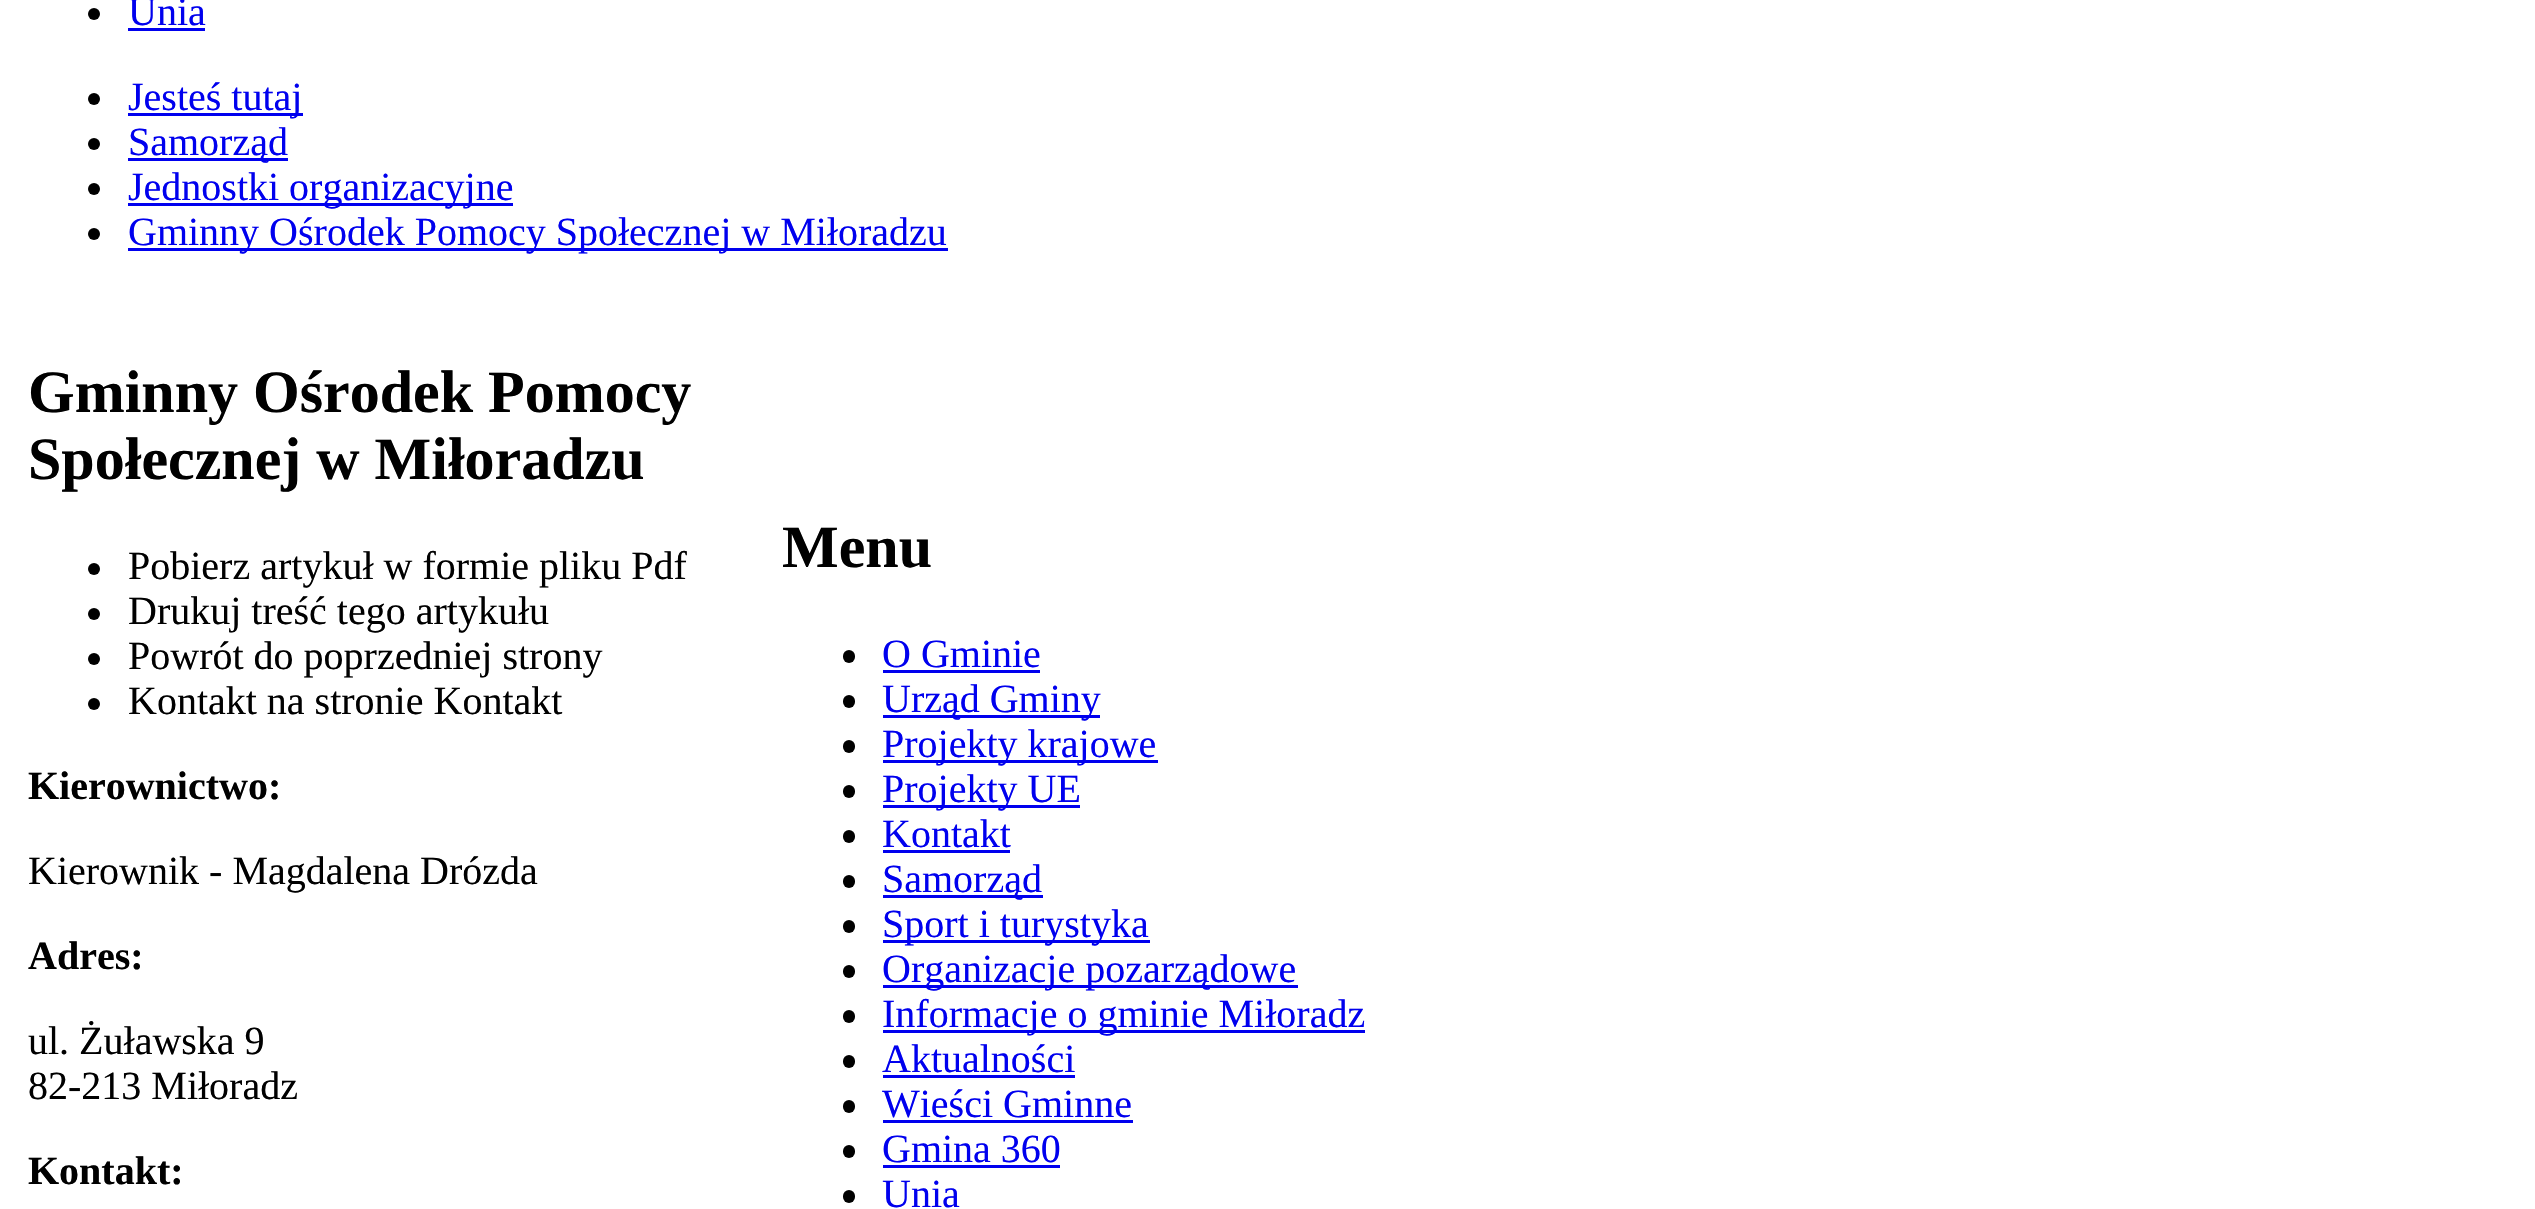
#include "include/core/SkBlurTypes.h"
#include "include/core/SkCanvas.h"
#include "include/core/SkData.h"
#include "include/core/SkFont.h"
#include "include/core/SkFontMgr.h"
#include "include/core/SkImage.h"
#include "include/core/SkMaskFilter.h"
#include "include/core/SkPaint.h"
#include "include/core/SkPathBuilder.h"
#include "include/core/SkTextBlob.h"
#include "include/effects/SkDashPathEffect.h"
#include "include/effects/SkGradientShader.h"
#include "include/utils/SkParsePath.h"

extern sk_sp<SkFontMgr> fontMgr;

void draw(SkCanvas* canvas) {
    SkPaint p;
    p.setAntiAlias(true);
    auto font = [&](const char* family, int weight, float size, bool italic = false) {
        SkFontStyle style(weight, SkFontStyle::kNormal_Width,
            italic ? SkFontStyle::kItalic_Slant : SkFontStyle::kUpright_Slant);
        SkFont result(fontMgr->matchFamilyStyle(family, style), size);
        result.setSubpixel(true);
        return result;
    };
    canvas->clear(0xFFFFFFFF);
    p.setColor(0xFF000000);
    canvas->drawCircle(94, 14, 6, p);
    auto font1 = font("Liberation Serif", 400, 40);
    p.setColor(0xFF0000EE);
    canvas->drawString("Unia", 128, 25, font1, p);
    canvas->drawRect(SkRect::MakeLTRB(128, 28, 205, 31), p);
    p.setColor(0xFF000000);
    canvas->drawCircle(94, 99, 6, p);
    p.setColor(0xFF0000EE);
    canvas->drawRect(SkRect::MakeLTRB(128, 113, 303, 116), p);
    canvas->drawString("Jesteś tutaj", 128, 110, font1, p);
    p.setColor(0xFF000000);
    canvas->drawCircle(94, 144, 6, p);
    p.setColor(0xFF0000EE);
    canvas->drawRect(SkRect::MakeLTRB(128, 158, 288, 161), p);
    canvas->drawString("Samorząd", 128, 155, font1, p);
    p.setColor(0xFF000000);
    canvas->drawCircle(94, 189, 6, p);
    p.setColor(0xFF0000EE);
    canvas->drawRect(SkRect::MakeLTRB(128, 203, 513, 206), p);
    canvas->drawString("Jednostki organizacyjne", 128, 200, font1, p);
    p.setColor(0xFF000000);
    canvas->drawCircle(94, 234, 6, p);
    p.setColor(0xFF0000EE);
    canvas->drawRect(SkRect::MakeLTRB(128, 248, 948, 251), p);
    canvas->drawString("Gminny Ośrodek Pomocy Społecznej w Miłoradzu", 128, 245, font1, p);
    auto font2 = font("Liberation Serif", 700, 60);
    p.setColor(0xFF000000);
    canvas->drawString("Gminny Ośrodek Pomocy", 28, 412, font2, p);
    canvas->drawString("Społecznej w Miłoradzu", 28, 479, font2, p);
    canvas->drawCircle(94, 569, 6, p);
    canvas->drawString("Pobierz artykuł w formie pliku Pdf", 128, 579, font1, p);
    canvas->drawCircle(94, 614, 6, p);
    canvas->drawString("Drukuj treść tego artykułu", 128, 624, font1, p);
    canvas->drawCircle(94, 659, 6, p);
    canvas->drawString("Powrót do poprzedniej strony", 128, 669, font1, p);
    canvas->drawCircle(94, 704, 6, p);
    canvas->drawString("Kontakt na stronie Kontakt", 128, 714, font1, p);
    auto font3 = font("Liberation Serif", 700, 40);
    canvas->drawString("Kierownictwo:", 28, 799, font3, p);
    canvas->drawString("Kierownik - Magdalena Drózda", 28, 884, font1, p);
    canvas->drawString("Adres:", 28, 969, font3, p);
    canvas->drawString("ul. Żuławska 9", 28, 1054, font1, p);
    canvas->drawString("82-213 Miłoradz", 28, 1099, font1, p);
    canvas->drawString("Kontakt:", 28, 1184, font3, p);
    canvas->drawString("Menu", 782, 567, font2, p);
    canvas->drawRoundRect(SkRect::MakeLTRB(843, 650, 855, 663), 6, 6, p);
    p.setColor(0xFF0000EE);
    canvas->drawString("O Gminie", 882, 667, font1, p);
    canvas->drawRect(SkRect::MakeLTRB(883, 670, 1040, 673), p);
    p.setColor(0xFF000000);
    canvas->drawRoundRect(SkRect::MakeLTRB(843, 695, 855, 708), 6, 6, p);
    p.setColor(0xFF0000EE);
    canvas->drawRect(SkRect::MakeLTRB(883, 715, 1100, 718), p);
    canvas->drawString("Urząd Gminy", 882, 712, font1, p);
    p.setColor(0xFF000000);
    canvas->drawRoundRect(SkRect::MakeLTRB(843, 740, 855, 753), 6, 6, p);
    p.setColor(0xFF0000EE);
    canvas->drawRect(SkRect::MakeLTRB(883, 760, 1158, 763), p);
    canvas->drawString("Projekty krajowe", 882, 757, font1, p);
    p.setColor(0xFF000000);
    canvas->drawRoundRect(SkRect::MakeLTRB(843, 785, 855, 798), 6, 6, p);
    p.setColor(0xFF0000EE);
    canvas->drawRect(SkRect::MakeLTRB(883, 805, 1080, 808), p);
    canvas->drawString("Projekty UE", 882, 802, font1, p);
    p.setColor(0xFF000000);
    canvas->drawRoundRect(SkRect::MakeLTRB(843, 830, 855, 843), 6, 6, p);
    p.setColor(0xFF0000EE);
    canvas->drawString("Kontakt", 882, 847, font1, p);
    canvas->drawRect(SkRect::MakeLTRB(883, 850, 1010, 853), p);
    p.setColor(0xFF000000);
    canvas->drawRoundRect(SkRect::MakeLTRB(843, 875, 855, 888), 6, 6, p);
    p.setColor(0xFF0000EE);
    canvas->drawRect(SkRect::MakeLTRB(883, 895, 1043, 898), p);
    canvas->drawString("Samorząd", 882, 892, font1, p);
    p.setColor(0xFF000000);
    canvas->drawRoundRect(SkRect::MakeLTRB(843, 920, 855, 933), 6, 6, p);
    p.setColor(0xFF0000EE);
    canvas->drawRect(SkRect::MakeLTRB(883, 940, 1150, 943), p);
    canvas->drawString("Sport i turystyka", 882, 937, font1, p);
    p.setColor(0xFF000000);
    canvas->drawRoundRect(SkRect::MakeLTRB(843, 965, 855, 978), 6, 6, p);
    p.setColor(0xFF0000EE);
    canvas->drawRect(SkRect::MakeLTRB(883, 985, 1298, 988), p);
    canvas->drawString("Organizacje pozarządowe", 882, 982, font1, p);
    p.setColor(0xFF000000);
    canvas->drawRoundRect(SkRect::MakeLTRB(843, 1010, 855, 1023), 6, 6, p);
    p.setColor(0xFF0000EE);
    canvas->drawRect(SkRect::MakeLTRB(883, 1030, 1365, 1033), p);
    canvas->drawString("Informacje o gminie Miłoradz", 882, 1027, font1, p);
    p.setColor(0xFF000000);
    canvas->drawRoundRect(SkRect::MakeLTRB(843, 1055, 855, 1068), 6, 6, p);
    p.setColor(0xFF0000EE);
    canvas->drawString("Aktualności", 882, 1072, font1, p);
    canvas->drawRect(SkRect::MakeLTRB(883, 1075, 1075, 1078), p);
    p.setColor(0xFF000000);
    canvas->drawRoundRect(SkRect::MakeLTRB(843, 1100, 855, 1113), 6, 6, p);
    p.setColor(0xFF0000EE);
    canvas->drawString("Wieści Gminne", 882, 1117, font1, p);
    canvas->drawRect(SkRect::MakeLTRB(883, 1120, 1133, 1123), p);
    p.setColor(0xFF000000);
    canvas->drawRoundRect(SkRect::MakeLTRB(843, 1145, 855, 1158), 6, 6, p);
    p.setColor(0xFF0000EE);
    canvas->drawString("Gmina 360", 882, 1162, font1, p);
    canvas->drawRect(SkRect::MakeLTRB(883, 1165, 1060, 1168), p);
    p.setColor(0xFF000000);
    canvas->drawRoundRect(SkRect::MakeLTRB(843, 1190, 855, 1203), 6, 6, p);
    p.setColor(0xFF0000EE);
    canvas->drawString("Unia", 882, 1207, font1, p);
}
